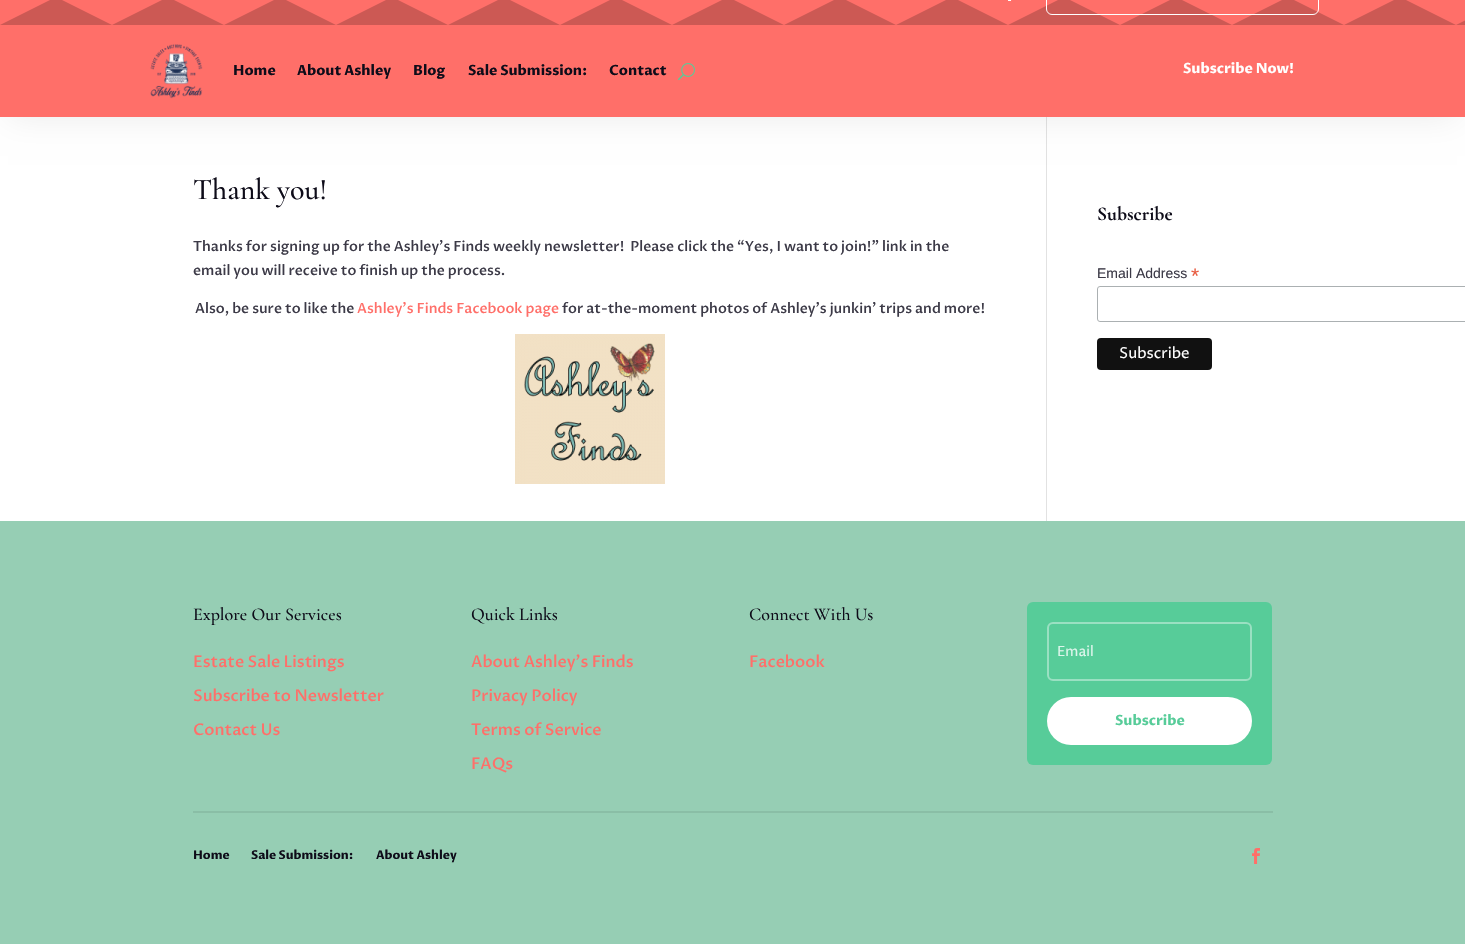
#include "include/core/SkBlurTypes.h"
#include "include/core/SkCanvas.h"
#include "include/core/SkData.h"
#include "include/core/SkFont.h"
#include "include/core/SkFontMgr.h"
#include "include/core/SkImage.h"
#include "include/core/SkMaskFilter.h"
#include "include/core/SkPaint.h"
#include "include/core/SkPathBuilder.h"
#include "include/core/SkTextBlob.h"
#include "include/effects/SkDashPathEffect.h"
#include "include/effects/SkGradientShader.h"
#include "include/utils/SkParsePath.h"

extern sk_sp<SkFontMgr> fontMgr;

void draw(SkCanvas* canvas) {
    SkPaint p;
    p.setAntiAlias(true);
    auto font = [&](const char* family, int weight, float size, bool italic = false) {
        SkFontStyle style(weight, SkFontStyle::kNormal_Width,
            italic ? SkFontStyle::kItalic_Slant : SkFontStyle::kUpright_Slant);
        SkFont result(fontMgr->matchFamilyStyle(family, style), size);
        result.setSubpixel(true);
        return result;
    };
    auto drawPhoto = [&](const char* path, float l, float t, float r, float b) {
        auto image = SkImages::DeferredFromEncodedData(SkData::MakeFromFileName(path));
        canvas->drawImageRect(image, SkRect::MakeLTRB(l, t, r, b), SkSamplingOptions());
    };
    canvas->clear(0xFF96CEB4);
    p.setColor(0xFFFFFFFF);
    canvas->drawRect(SkRect::MakeLTRB(0, 117, 1465, 521), p);
    p.setColor(0xFFE2E2E2);
    canvas->drawRect(SkRect::MakeLTRB(1046, 117, 1047, 521), p);
    p.setColor(0x14000000);
    p.setMaskFilter(SkMaskFilter::MakeBlur(kNormal_SkBlurStyle, 16));
    canvas->drawRect(SkRect::MakeLTRB(8, -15, 1457, 117), p);
    p.setMaskFilter(nullptr);
    p.setColor(0xFFFF6F69);
    canvas->drawRect(SkRect::MakeLTRB(0, 0, 1465, 117), p);
    drawPhoto("media/1.png", 0, 0, 1465, 25);
    p.setStyle(SkPaint::kStroke_Style);
    p.setStrokeWidth(1);
    p.setColor(0xFFFFFFFF);
    canvas->drawRoundRect(SkRect::MakeLTRB(1046.5f, -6.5f, 1318.5f, 14.5f), 5.5f, 5.5f, p);
    drawPhoto("media/2.png", 1008, 0, 1012, 1);
    drawPhoto("media/3.png", 150, 44, 203, 99);
    auto font1 = font("Proza Libre", 700, 14);
    p.setStyle(SkPaint::kFill_Style);
    p.setColor(0xFF0E0C19);
    {
        const struct { const char* s; float x, y; } items[] = {
            {"Home", 233, 75},
            {"About Ashley", 297, 75},
            {"Blog", 413, 75},
            {"Sale Submission:", 468, 75},
            {"Contact", 609, 75},
        };
        for (auto [s, x, y] : items) {
            canvas->drawString(s, x, y, font1, p);
        }
    }
    drawPhoto("media/4.png", 678, 63, 695, 81);
    p.setColor(0xFFFFFFFF);
    canvas->drawString("Subscribe Now!", 1183, 73, font1, p);
    auto font2 = font("Cormorant Garamond", 300, 30);
    p.setColor(0xFF0E0C19);
    canvas->drawString("Thank you!", 193, 199, font2, p);
    auto font3 = font("Proza Libre", 500, 14);
    p.setColor(0xFF3C3A47);
    {
        const struct { const char* s; float x, y; } items[] = {
            {"Thanks for signing up for the Ashley’s Finds weekly newsletter!  Please click the “Yes, I want to join!” link in the", 193, 251},
            {"email you will receive to finish up the process.", 193, 275},
            {"Also, be sure to like the", 195, 313},
        };
        for (auto [s, x, y] : items) {
            canvas->drawString(s, x, y, font3, p);
        }
    }
    p.setColor(0xFFFF6F69);
    canvas->drawString("Ashley’s Finds Facebook page", 357, 313, font3, p);
    p.setColor(0xFF3C3A47);
    canvas->drawString("for at-the-moment photos of Ashley’s junkin’ trips and more!", 562, 313, font3, p);
    drawPhoto("media/5.png", 515, 334, 665, 484);
    auto font4 = font("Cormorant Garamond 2", 300, 19.5f);
    p.setColor(0xFF0E0C19);
    canvas->drawString("Subscribe", 1097, 220, font4, p);
    auto font5 = font("Liberation Sans", 400, 14);
    p.setColor(0xFF3C3A47);
    canvas->drawString("Email Address", 1097, 278, font5, p);
    auto font6 = font("Liberation Sans", 400, 21);
    p.setColor(0xFFE85C41);
    canvas->drawString("*", 1191, 283, font6, p);
    p.setStyle(SkPaint::kStroke_Style);
    p.setColor(0xFFABB0B2);
    canvas->drawRoundRect(SkRect::MakeLTRB(1097.5f, 286.5f, 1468.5f, 321.5f), 2.5f, 2.5f, p);
    p.setStyle(SkPaint::kFill_Style);
    p.setColor(0xFF111111);
    canvas->drawRoundRect(SkRect::MakeLTRB(1097, 338, 1212, 370), 4, 4, p);
    auto font7 = font("Proza Libre", 400, 15);
    p.setColor(0xFFFFFFFF);
    canvas->drawString("Subscribe", 1119, 358, font7, p);
    auto font8 = font("Cormorant Garamond", 300, 18);
    p.setColor(0xFF0E0C19);
    canvas->drawString("Explore Our Services", 193, 620, font8, p);
    auto font9 = font("Proza Libre", 500, 16);
    p.setColor(0xFFFF6F69);
    {
        const struct { const char* s; float x, y; } items[] = {
            {"Estate Sale Listings", 193, 667},
            {"Subscribe to Newsletter", 193, 701},
            {"Contact Us", 193, 735},
        };
        for (auto [s, x, y] : items) {
            canvas->drawString(s, x, y, font9, p);
        }
    }
    p.setColor(0xFF0E0C19);
    canvas->drawString("Quick Links", 471, 620, font8, p);
    p.setColor(0xFFFF6F69);
    {
        const struct { const char* s; float x, y; } items[] = {
            {"About Ashley’s Finds", 471, 667},
            {"Privacy Policy", 471, 701},
            {"Terms of Service", 471, 735},
            {"FAQs", 471, 769},
        };
        for (auto [s, x, y] : items) {
            canvas->drawString(s, x, y, font9, p);
        }
    }
    p.setColor(0xFF0E0C19);
    canvas->drawString("Connect With Us", 749, 620, font8, p);
    p.setColor(0xFFFF6F69);
    canvas->drawString("Facebook", 749, 667, font9, p);
    p.setColor(0xFF57CC99);
    canvas->drawRoundRect(SkRect::MakeLTRB(1027, 602, 1272, 765), 6, 6, p);
    p.setStyle(SkPaint::kStroke_Style);
    p.setStrokeWidth(2);
    p.setColor(0xFF9AE0C2);
    canvas->drawRoundRect(SkRect::MakeLTRB(1048, 623, 1251, 680), 5, 5, p);
    auto font10 = font("Proza Libre", 400, 14);
    p.setStyle(SkPaint::kFill_Style);
    p.setColor(0xFFDDF5EB);
    canvas->drawString("Email", 1057, 656, font10, p);
    p.setColor(0xFFFFFFFF);
    canvas->drawRoundRect(SkRect::MakeLTRB(1047, 697, 1252, 745), 24, 24, p);
    p.setColor(0xFF57CC99);
    canvas->drawString("Subscribe", 1115, 725, font1, p);
    p.setColor(0xFF8ABEA6);
    canvas->drawRect(SkRect::MakeLTRB(193, 811, 1273, 813), p);
    auto font11 = font("Proza Libre", 700, 12);
    p.setColor(0xFF0E0C19);
    {
        const struct { const char* s; float x, y; } items[] = {
            {"Home", 193, 859},
            {"Sale Submission:", 251, 859},
            {"About Ashley", 376, 859},
        };
        for (auto [s, x, y] : items) {
            canvas->drawString(s, x, y, font11, p);
        }
    }
    drawPhoto("media/6.png", 1252, 848, 1260, 864);
}
